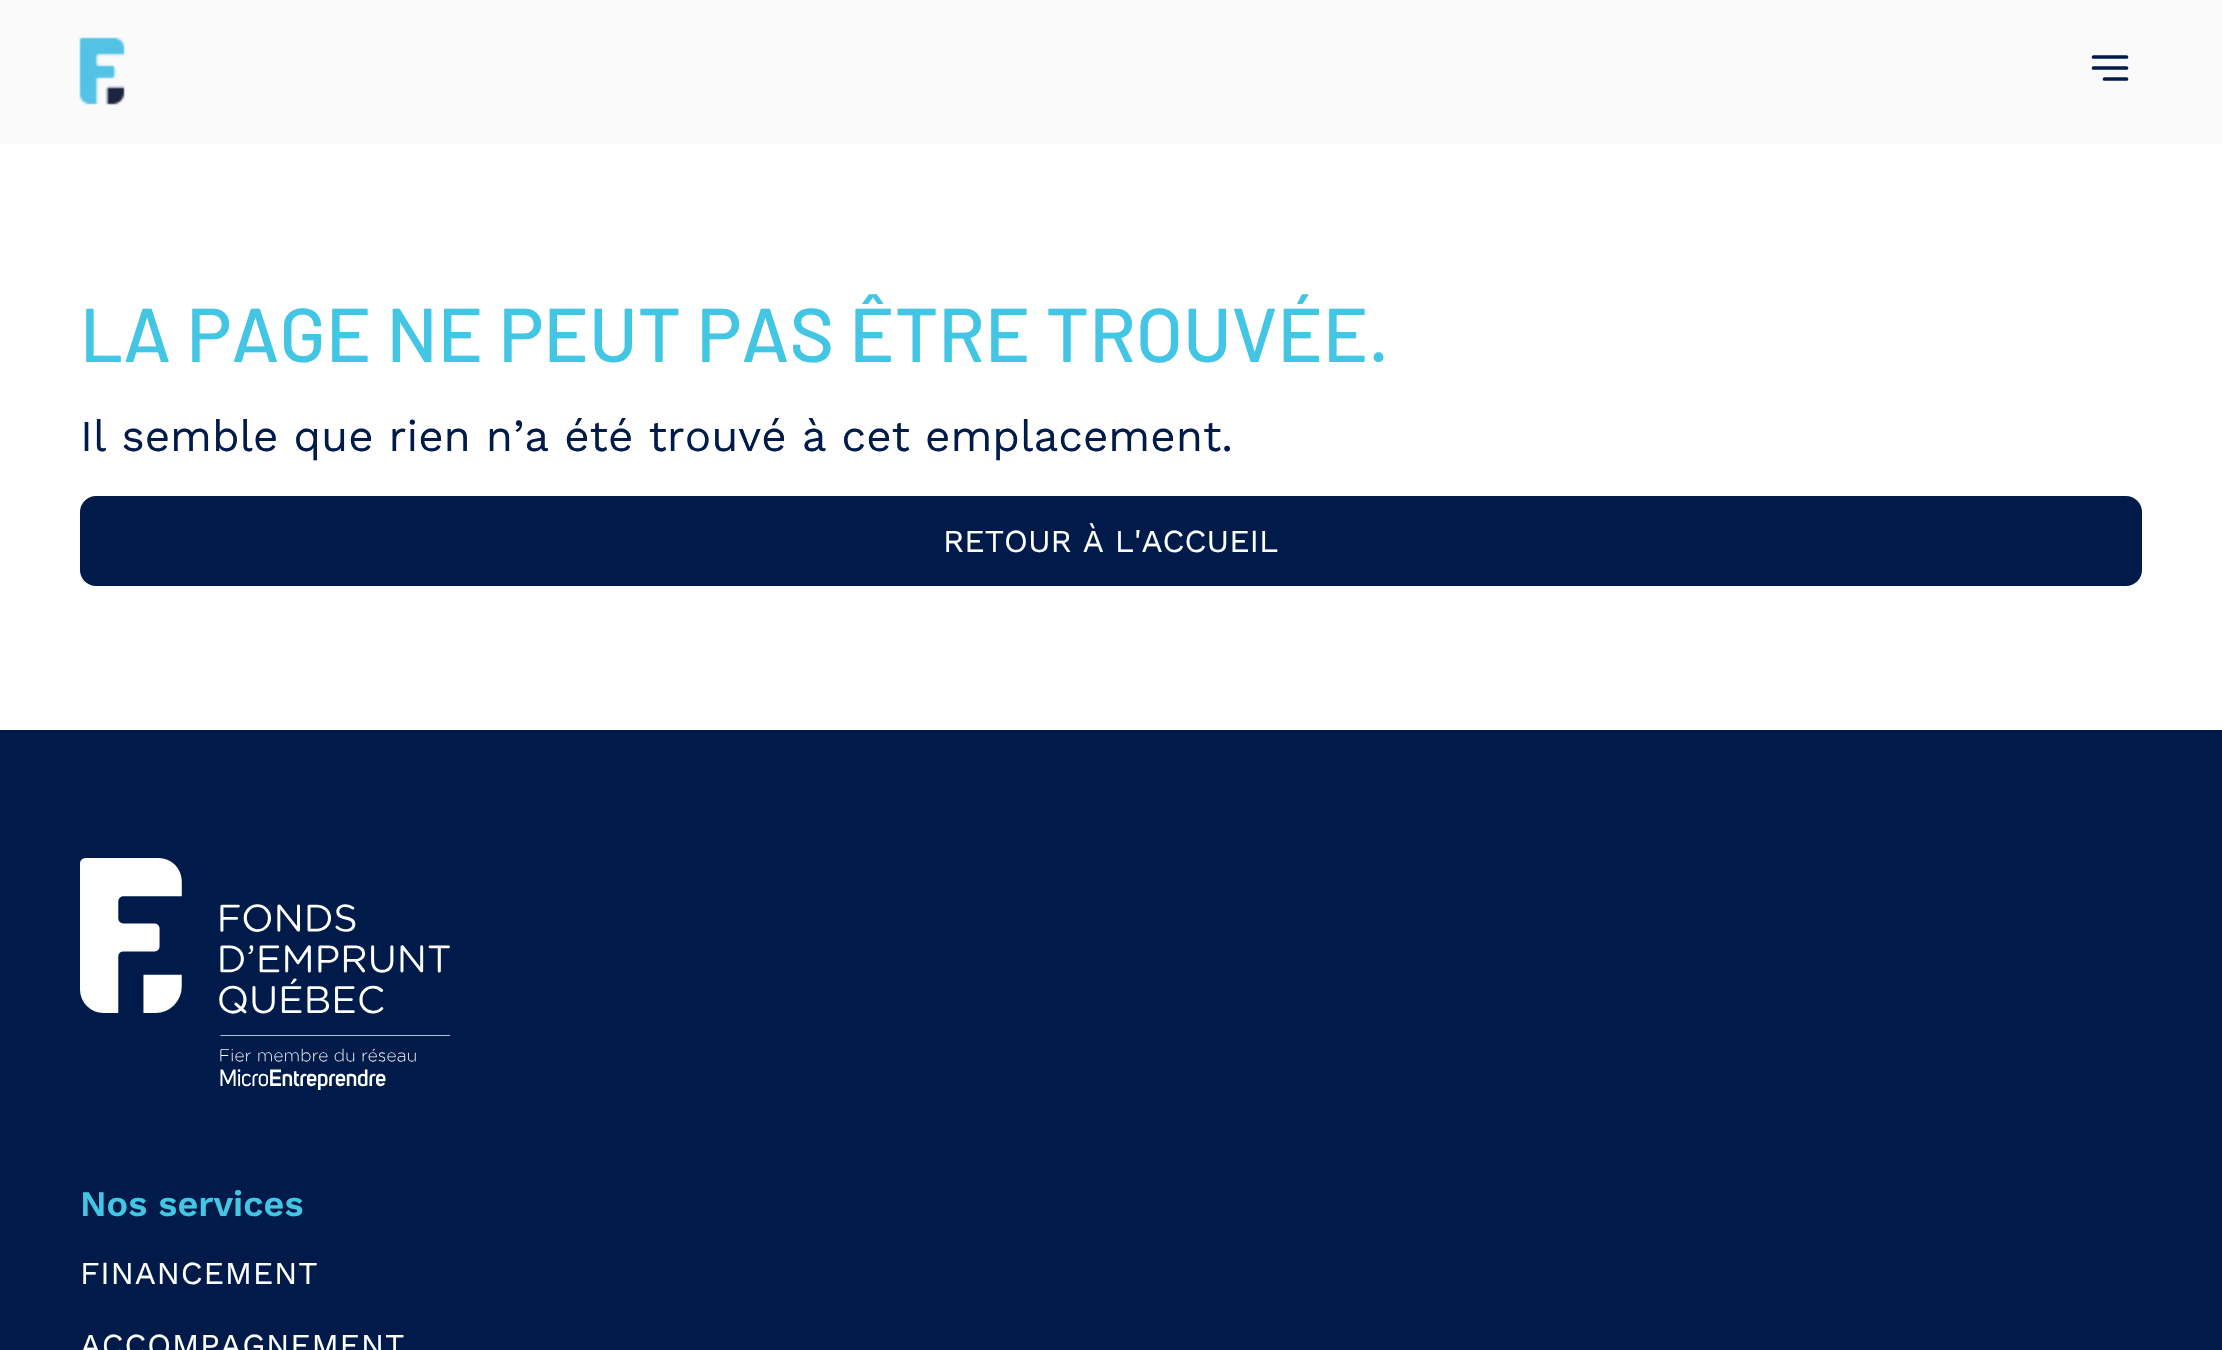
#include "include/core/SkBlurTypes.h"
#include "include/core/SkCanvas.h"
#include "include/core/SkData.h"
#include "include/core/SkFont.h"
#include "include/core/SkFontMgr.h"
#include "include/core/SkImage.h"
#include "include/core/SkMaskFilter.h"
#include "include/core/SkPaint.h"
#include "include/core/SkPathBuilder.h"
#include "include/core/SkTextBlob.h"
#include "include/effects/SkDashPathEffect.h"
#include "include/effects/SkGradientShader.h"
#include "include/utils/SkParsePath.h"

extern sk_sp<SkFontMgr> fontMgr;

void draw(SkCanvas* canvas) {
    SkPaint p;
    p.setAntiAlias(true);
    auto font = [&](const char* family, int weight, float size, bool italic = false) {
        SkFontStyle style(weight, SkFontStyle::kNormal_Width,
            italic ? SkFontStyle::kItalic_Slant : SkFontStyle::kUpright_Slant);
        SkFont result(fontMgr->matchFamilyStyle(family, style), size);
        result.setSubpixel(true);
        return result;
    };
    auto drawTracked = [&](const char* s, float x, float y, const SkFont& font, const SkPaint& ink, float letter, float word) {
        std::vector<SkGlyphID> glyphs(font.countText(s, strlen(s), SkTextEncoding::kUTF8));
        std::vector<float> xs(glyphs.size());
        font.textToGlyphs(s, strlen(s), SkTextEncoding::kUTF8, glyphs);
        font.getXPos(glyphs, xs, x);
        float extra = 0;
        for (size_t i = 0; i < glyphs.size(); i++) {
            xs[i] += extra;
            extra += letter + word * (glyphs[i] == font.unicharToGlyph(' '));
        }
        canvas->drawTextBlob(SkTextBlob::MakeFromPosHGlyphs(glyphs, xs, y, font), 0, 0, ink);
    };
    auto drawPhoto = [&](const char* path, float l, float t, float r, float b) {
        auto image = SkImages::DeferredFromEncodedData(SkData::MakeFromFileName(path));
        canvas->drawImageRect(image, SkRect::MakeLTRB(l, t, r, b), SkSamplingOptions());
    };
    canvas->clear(0xFFFFFFFF);
    p.setColor(0xFFFAFAFA);
    canvas->drawRect(SkRect::MakeLTRB(0, 0, 2222, 144), p);
    drawPhoto("media/1.png", 79, 37, 125, 105);
    p.setStyle(SkPaint::kStroke_Style);
    p.setStrokeWidth(3.7f);
    p.setStrokeCap(SkPaint::kRound_Cap);
    p.setStrokeJoin(SkPaint::kRound_Join);
    p.setColor(0xFF001B49);
    canvas->drawPath(SkPathBuilder().moveTo(2093.5f, 68).lineTo(2126.5f, 68).moveTo(2093.5f, 57).lineTo(2126.5f, 57).moveTo(2104.5f, 79).lineTo(2126.5f, 79).detach(), p);
    auto font1 = font("Barlow", 500, 76);
    p.setStyle(SkPaint::kFill_Style);
    p.setColor(0xFF43C5E4);
    canvas->drawString("LA PAGE NE PEUT PAS ÊTRE TROUVÉE.", 80, 362, font1, p);
    auto font2 = font("Work Sans", 400, 44);
    p.setColor(0xFF001B49);
    canvas->drawString("Il semble que rien n’a été trouvé à cet emplacement.", 80, 451, font2, p);
    canvas->drawRoundRect(SkRect::MakeLTRB(80, 496, 2142, 586), 16, 16, p);
    auto font3 = font("Work Sans", 400, 32);
    p.setColor(0xFFFFFFFF);
    canvas->drawString("RETOUR À L'ACCUEIL", 943, 552, font3, p);
    p.setColor(0xFF001B49);
    canvas->drawRect(SkRect::MakeLTRB(0, 730, 2222, 1350), p);
    drawPhoto("media/2.png", 80, 858, 450, 1090);
    auto font4 = font("Work Sans", 600, 36);
    p.setColor(0xFF43C5E4);
    canvas->drawString("Nos services", 80, 1216, font4, p);
    p.setColor(0xFFFFFFFF);
    drawTracked("FINANCEMENT", 80, 1284, font3, p, 0.75f, 0);
    drawTracked("ACCOMPAGNEMENT", 80, 1356, font3, p, 0.75f, 0);
}
